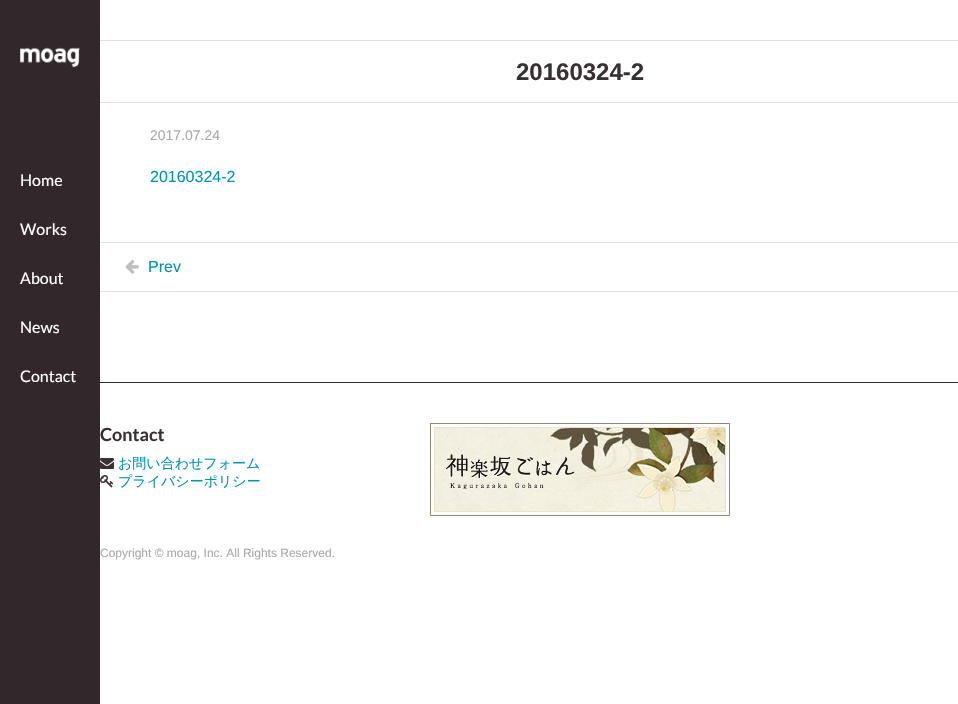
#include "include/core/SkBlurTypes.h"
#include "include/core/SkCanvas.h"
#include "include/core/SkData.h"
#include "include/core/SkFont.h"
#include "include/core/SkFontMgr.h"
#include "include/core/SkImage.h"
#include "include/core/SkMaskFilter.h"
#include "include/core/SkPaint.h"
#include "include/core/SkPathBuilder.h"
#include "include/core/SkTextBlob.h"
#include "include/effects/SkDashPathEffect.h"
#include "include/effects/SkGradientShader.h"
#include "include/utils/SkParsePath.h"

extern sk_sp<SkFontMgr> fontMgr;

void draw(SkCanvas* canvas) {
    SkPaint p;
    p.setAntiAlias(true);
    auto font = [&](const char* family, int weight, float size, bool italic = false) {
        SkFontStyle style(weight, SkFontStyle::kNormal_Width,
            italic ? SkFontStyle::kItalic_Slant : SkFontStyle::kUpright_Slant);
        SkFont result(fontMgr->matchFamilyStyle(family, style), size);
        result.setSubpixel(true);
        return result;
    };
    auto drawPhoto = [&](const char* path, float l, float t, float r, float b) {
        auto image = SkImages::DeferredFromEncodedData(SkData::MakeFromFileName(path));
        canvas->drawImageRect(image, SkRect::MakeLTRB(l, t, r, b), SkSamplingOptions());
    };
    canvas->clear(0xFFFFFFFF);
    p.setColor(0xFF32272A);
    canvas->drawRect(SkRect::MakeLTRB(0, 0, 100, 704), p);
    drawPhoto("media/1.png", 20, 47, 80, 67);
    auto font1 = font("Lato", 400, 16);
    p.setColor(0xFFFFFFFF);
    {
        const struct { const char* s; float x, y; } items[] = {
            {"Home", 20, 186},
            {"Works", 20, 235},
            {"About", 20, 284},
            {"News", 20, 333},
            {"Contact", 20, 382},
        };
        for (auto [s, x, y] : items) {
            canvas->drawString(s, x, y, font1, p);
        }
    }
    p.setColor(0xFFE2E1DC);
    canvas->drawRect(SkRect::MakeLTRB(100, 40, 958, 41), p);
    canvas->drawRect(SkRect::MakeLTRB(100, 102, 958, 103), p);
    auto font2 = font("Liberation Sans", 700, 24);
    p.setColor(0xFF393033);
    canvas->drawString("20160324-2", 516, 80, font2, p);
    auto font3 = font("Liberation Sans", 400, 14);
    p.setColor(0xFFADA7A9);
    canvas->drawString("2017.07.24", 150, 140, font3, p);
    auto font4 = font("Liberation Sans", 400, 16);
    p.setColor(0xFF0094B2);
    canvas->drawString("20160324-2", 150, 182, font4, p);
    p.setColor(0xFFE2E1DC);
    canvas->drawRect(SkRect::MakeLTRB(100, 242, 958, 243), p);
    canvas->drawRect(SkRect::MakeLTRB(100, 291, 958, 292), p);
    drawPhoto("media/2.png", 125, 260, 139, 274);
    p.setColor(0xFF0094B2);
    canvas->drawString("Prev", 148, 272, font4, p);
    p.setColor(0xFF32272A);
    canvas->drawRect(SkRect::MakeLTRB(100, 382, 958, 383), p);
    auto font5 = font("Lato", 700, 18);
    p.setColor(0xFF393033);
    canvas->drawString("Contact", 100, 441, font5, p);
    drawPhoto("media/3.png", 100, 458, 114, 469);
    auto font6 = font("WenQuanYi Zen Hei", 500, 14);
    p.setColor(0xFF0094B2);
    canvas->drawString("お問い合わせフォーム", 118, 468, font6, p);
    drawPhoto("media/4.png", 100, 475, 114, 488);
    canvas->drawString("プライバシーポリシー", 118, 486, font6, p);
    drawPhoto("media/5.png", 430, 423, 730, 516);
    auto font7 = font("Liberation Sans", 400, 12);
    p.setColor(0xFFADA7A9);
    canvas->drawString("Copyright © moag, Inc. All Rights Reserved.", 100, 557, font7, p);
}
